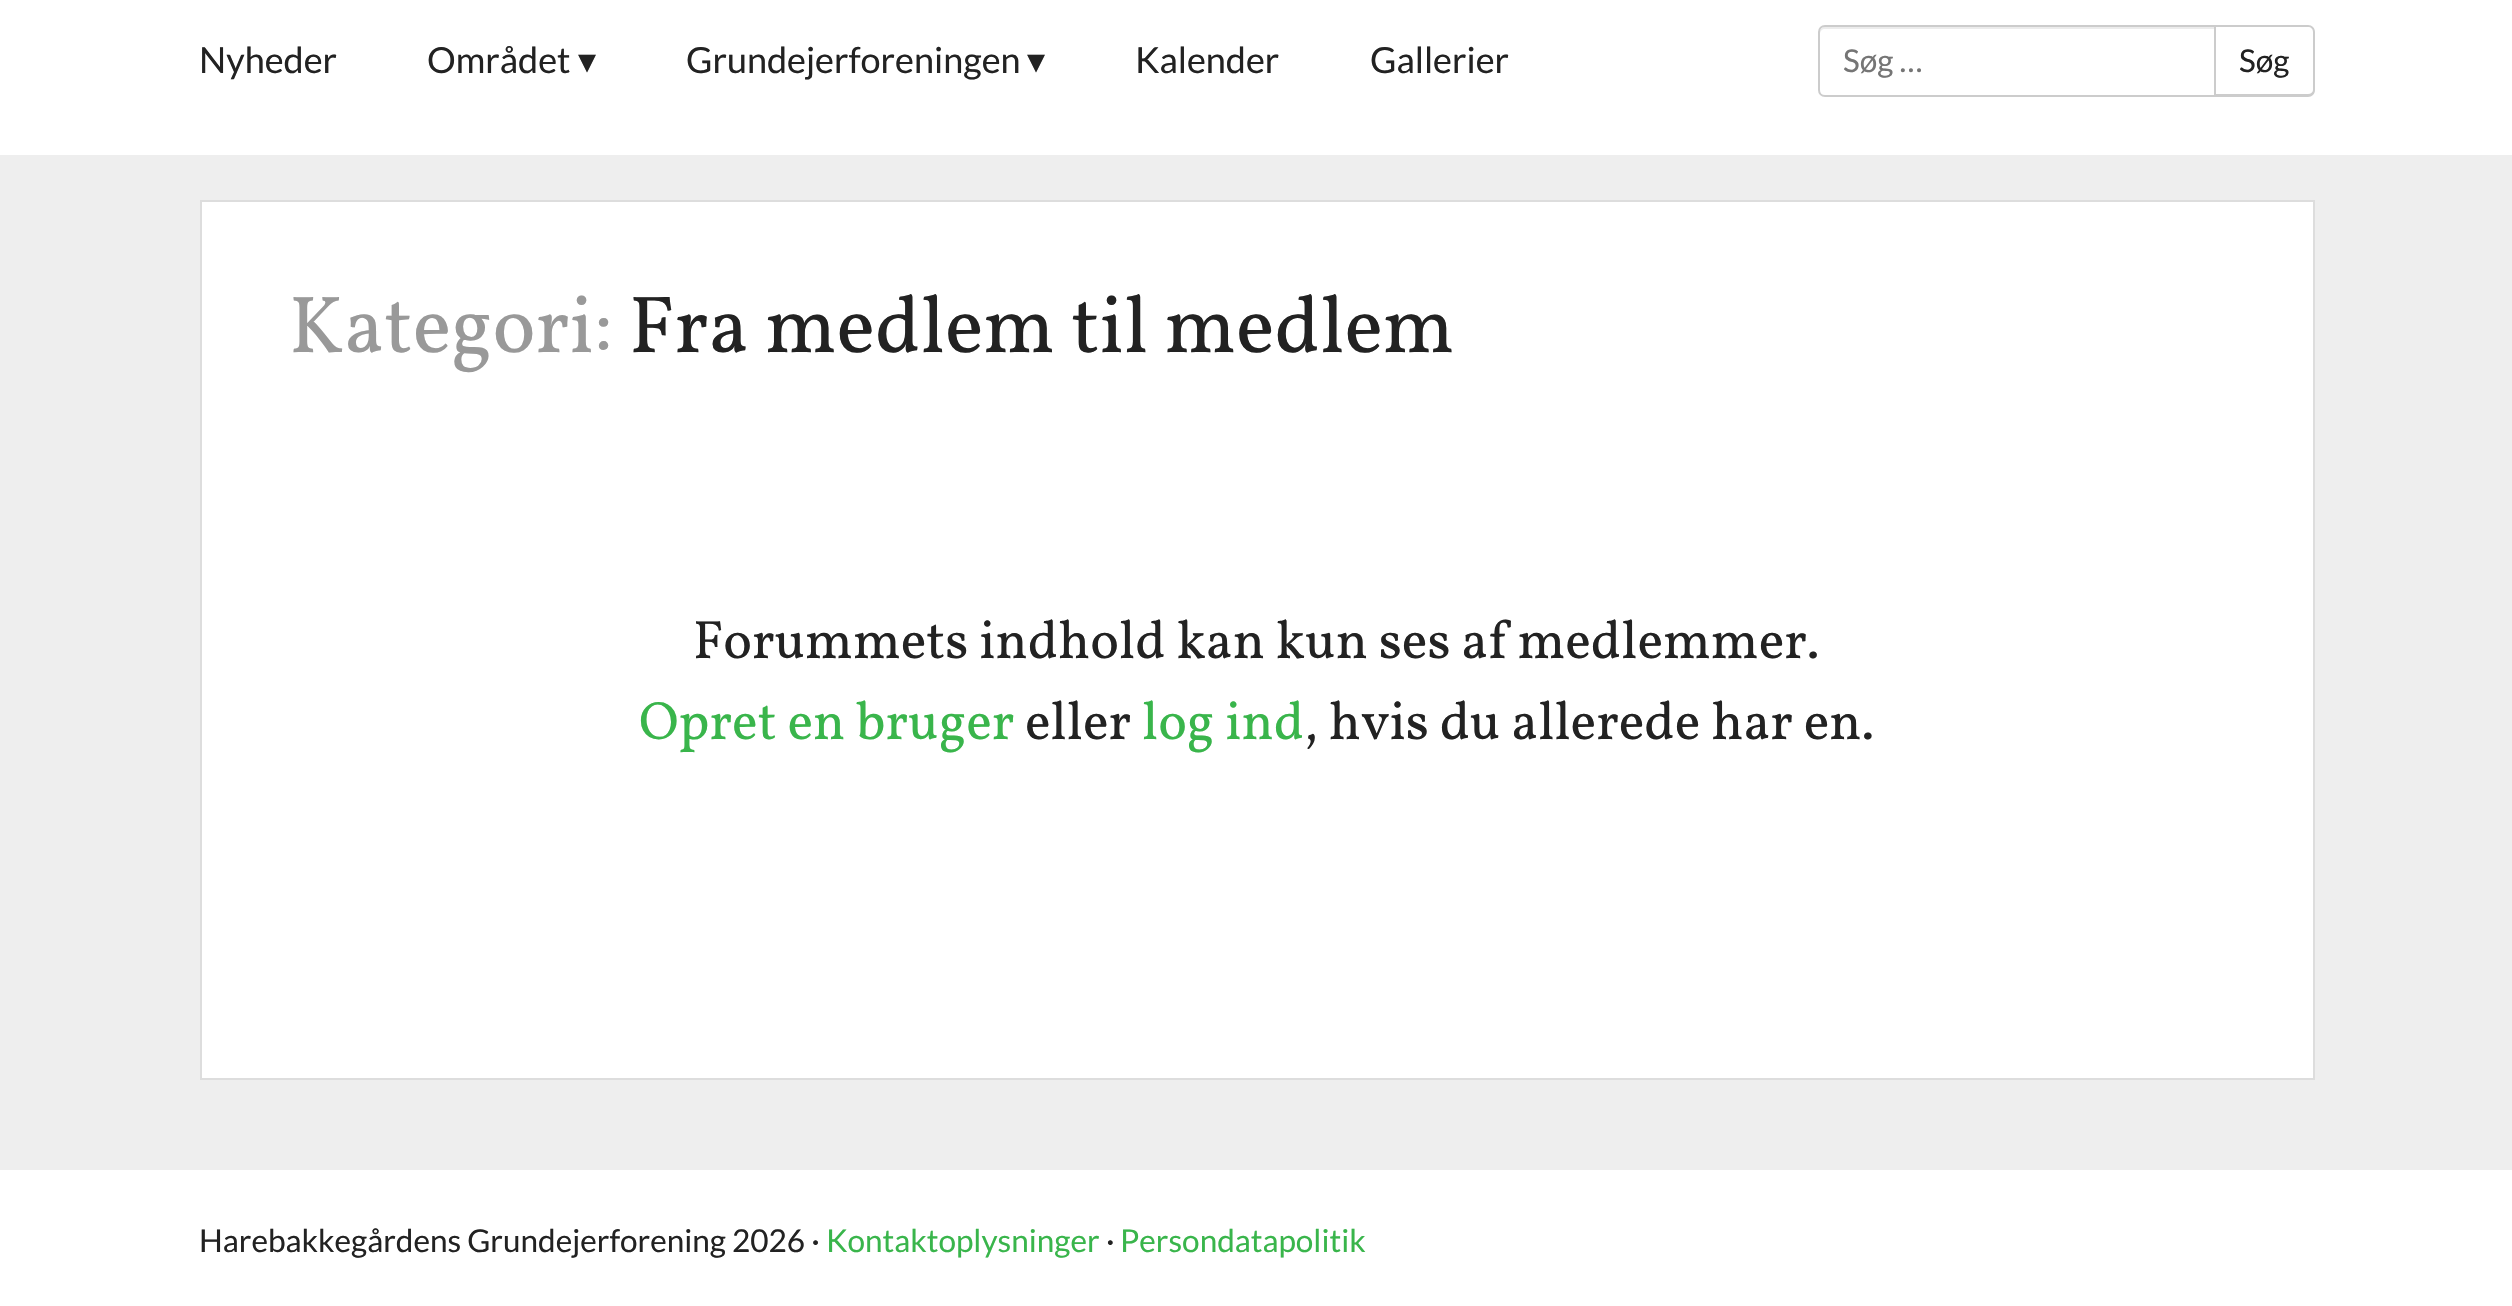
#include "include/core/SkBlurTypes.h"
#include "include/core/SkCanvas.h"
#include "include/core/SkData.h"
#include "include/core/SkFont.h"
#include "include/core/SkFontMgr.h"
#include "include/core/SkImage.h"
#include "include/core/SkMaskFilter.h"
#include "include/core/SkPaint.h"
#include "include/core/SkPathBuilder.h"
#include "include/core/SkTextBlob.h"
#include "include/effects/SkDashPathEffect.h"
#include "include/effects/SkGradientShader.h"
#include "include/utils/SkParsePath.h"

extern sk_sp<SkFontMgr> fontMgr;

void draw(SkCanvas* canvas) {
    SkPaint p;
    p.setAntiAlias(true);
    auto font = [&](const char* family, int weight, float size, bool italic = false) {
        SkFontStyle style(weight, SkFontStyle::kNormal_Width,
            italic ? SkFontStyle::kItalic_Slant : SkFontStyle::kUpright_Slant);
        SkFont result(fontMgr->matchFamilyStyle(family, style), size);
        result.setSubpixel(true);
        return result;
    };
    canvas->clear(0xFFFFFFFF);
    auto font1 = font("Lato", 400, 36);
    p.setColor(0xFF222222);
    canvas->drawString("Nyheder", 199, 73, font1, p);
    canvas->drawString("Området", 427, 73, font1, p);
    auto font2 = font("DejaVu Sans", 400, 36);
    canvas->drawString("▾", 578, 73, font2, p);
    canvas->drawString("Grundejerforeningen", 686, 73, font1, p);
    canvas->drawString("▾", 1027, 73, font2, p);
    canvas->drawString("Kalender", 1135, 73, font1, p);
    canvas->drawString("Gallerier", 1370, 73, font1, p);
    p.setColor(0xFFECECEC);
    canvas->drawPath(SkPathBuilder().moveTo(1825, 29).lineTo(2214, 29).lineTo(2214, 27).lineTo(1825, 27).cubicTo(1822, 27, 1820, 29, 1820, 32).lineTo(1820, 34).cubicTo(1820, 31, 1822, 29, 1825, 29).close().detach(), p);
    p.setStyle(SkPaint::kStroke_Style);
    p.setStrokeWidth(2);
    p.setColor(0xFFCCCCCC);
    canvas->drawPath(SkPathBuilder().moveTo(1825, 26).lineTo(2215, 26).lineTo(2215, 96).lineTo(1825, 96).cubicTo(1821.5f, 96, 1819, 93.5f, 1819, 90).lineTo(1819, 32).cubicTo(1819, 28.5f, 1821.5f, 26, 1825, 26).close().detach(), p);
    auto font3 = font("Lato", 400, 31.5f);
    p.setStyle(SkPaint::kFill_Style);
    p.setColor(0xFF757575);
    canvas->drawString("Søg …", 1843, 72, font3, p);
    p.setColor(0xFFCCCCCC);
    canvas->drawPath(SkPathBuilder(SkPathFillType::kEvenOdd).moveTo(2216, 25).lineTo(2308, 25).cubicTo(2312, 25, 2315, 28, 2315, 32).lineTo(2315, 90).cubicTo(2315, 94, 2312, 97, 2308, 97).lineTo(2216, 97).close().moveTo(2216, 27).lineTo(2308, 27).cubicTo(2311, 27, 2313, 29, 2313, 32).lineTo(2313, 90).cubicTo(2313, 92, 2311, 94, 2308, 94).lineTo(2216, 94).close().detach(), p);
    p.setColor(0xFF222222);
    canvas->drawString("Søg", 2239, 72, font3, p);
    p.setColor(0xFFEEEEEE);
    canvas->drawRect(SkRect::MakeLTRB(0, 155, 2512, 1170), p);
    p.setColor(0xFFFFFFFF);
    canvas->drawRect(SkRect::MakeLTRB(201, 201, 2314, 1079), p);
    p.setStyle(SkPaint::kStroke_Style);
    p.setColor(0xFFDDDDDD);
    canvas->drawRect(SkRect::MakeLTRB(201, 201, 2314, 1079), p);
    auto font4 = font("Vollkorn", 400, 81);
    p.setStyle(SkPaint::kFill_Style);
    p.setColor(0xFF999999);
    canvas->drawString("Kategori:", 289, 352, font4, p);
    p.setColor(0xFF222222);
    canvas->drawString("Fra medlem til medlem", 629, 352, font4, p);
    auto font5 = font("Vollkorn", 400, 54);
    canvas->drawString("Forummets indhold kan kun ses af medlemmer.", 693, 658, font5, p);
    p.setColor(0xFF39B54B);
    canvas->drawString("Opret en bruger", 639, 739, font5, p);
    p.setColor(0xFF222222);
    canvas->drawString("eller", 1025, 739, font5, p);
    p.setColor(0xFF39B54B);
    canvas->drawString("log ind", 1142, 739, font5, p);
    p.setColor(0xFF222222);
    canvas->drawString(", hvis du allerede har en.", 1304, 739, font5, p);
    canvas->drawString("Harebakkegårdens Grundejerforening 2026 ·", 199, 1252, font3, p);
    p.setColor(0xFF39B54B);
    canvas->drawString("Kontaktoplysninger", 826, 1252, font3, p);
    p.setColor(0xFF222222);
    canvas->drawString("·", 1106, 1252, font3, p);
    p.setColor(0xFF39B54B);
    canvas->drawString("Persondatapolitik", 1120, 1252, font3, p);
}
